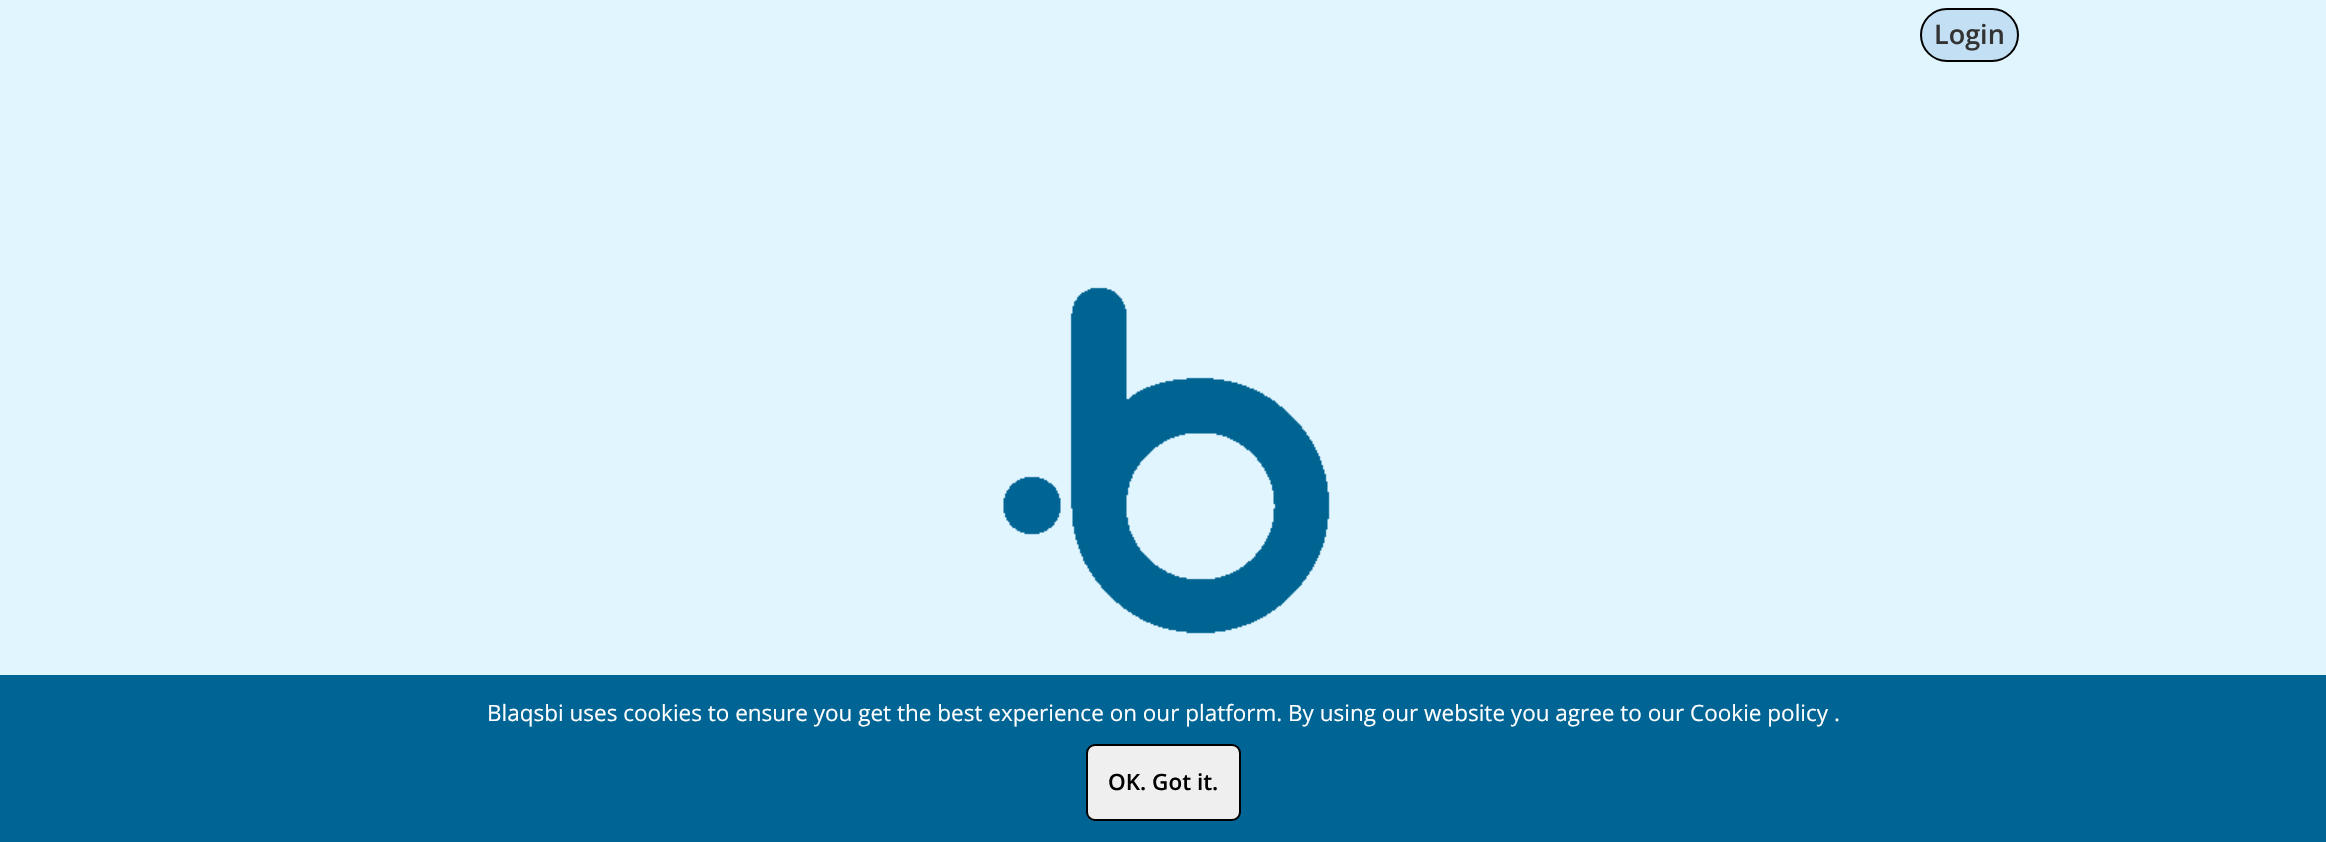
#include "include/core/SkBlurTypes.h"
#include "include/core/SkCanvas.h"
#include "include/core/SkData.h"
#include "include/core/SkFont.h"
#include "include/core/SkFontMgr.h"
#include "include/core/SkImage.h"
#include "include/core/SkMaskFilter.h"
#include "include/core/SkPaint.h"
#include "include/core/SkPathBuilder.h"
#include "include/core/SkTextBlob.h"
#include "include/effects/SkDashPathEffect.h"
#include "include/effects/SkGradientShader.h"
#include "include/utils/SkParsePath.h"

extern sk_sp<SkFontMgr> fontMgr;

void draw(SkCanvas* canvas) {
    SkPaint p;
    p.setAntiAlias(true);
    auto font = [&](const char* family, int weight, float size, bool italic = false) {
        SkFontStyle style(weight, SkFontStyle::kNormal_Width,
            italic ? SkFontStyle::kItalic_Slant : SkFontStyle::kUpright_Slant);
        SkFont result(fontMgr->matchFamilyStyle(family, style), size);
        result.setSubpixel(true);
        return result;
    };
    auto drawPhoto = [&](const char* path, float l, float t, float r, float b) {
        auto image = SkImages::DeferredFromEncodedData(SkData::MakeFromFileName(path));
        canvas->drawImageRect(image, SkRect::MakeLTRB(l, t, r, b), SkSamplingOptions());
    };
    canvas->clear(0xFFE1F5FE);
    p.setColor(0xFFC2DFF3);
    canvas->drawRoundRect(SkRect::MakeLTRB(1921, 9, 2018, 61), 26, 26, p);
    p.setStyle(SkPaint::kStroke_Style);
    p.setStrokeWidth(2);
    p.setColor(0xFF000000);
    canvas->drawRoundRect(SkRect::MakeLTRB(1921, 9, 2018, 61), 26, 26, p);
    auto font1 = font("Open Sans", 600, 27);
    p.setStyle(SkPaint::kFill_Style);
    p.setColor(0xFF333333);
    canvas->drawString("Login", 1934, 44, font1, p);
    drawPhoto("media/1.png", 1003, 287, 1330, 634);
    p.setColor(0xFF006494);
    canvas->drawRect(SkRect::MakeLTRB(0, 675, 2326, 842), p);
    auto font2 = font("Open Sans", 400, 22.5f);
    p.setColor(0xFFFFFFFF);
    canvas->drawString("Blaqsbi uses cookies to ensure you get the best experience on our platform. By using our website you agree to our Cookie policy .", 487, 721, font2, p);
    p.setColor(0xFFEFEFEF);
    canvas->drawRoundRect(SkRect::MakeLTRB(1087, 745, 1240, 820), 8, 8, p);
    p.setStyle(SkPaint::kStroke_Style);
    p.setColor(0xFF000000);
    canvas->drawRoundRect(SkRect::MakeLTRB(1087, 745, 1240, 820), 8, 8, p);
    auto font3 = font("Open Sans", 600, 22.5f);
    p.setStyle(SkPaint::kFill_Style);
    canvas->drawString("OK. Got it.", 1108, 790, font3, p);
}
